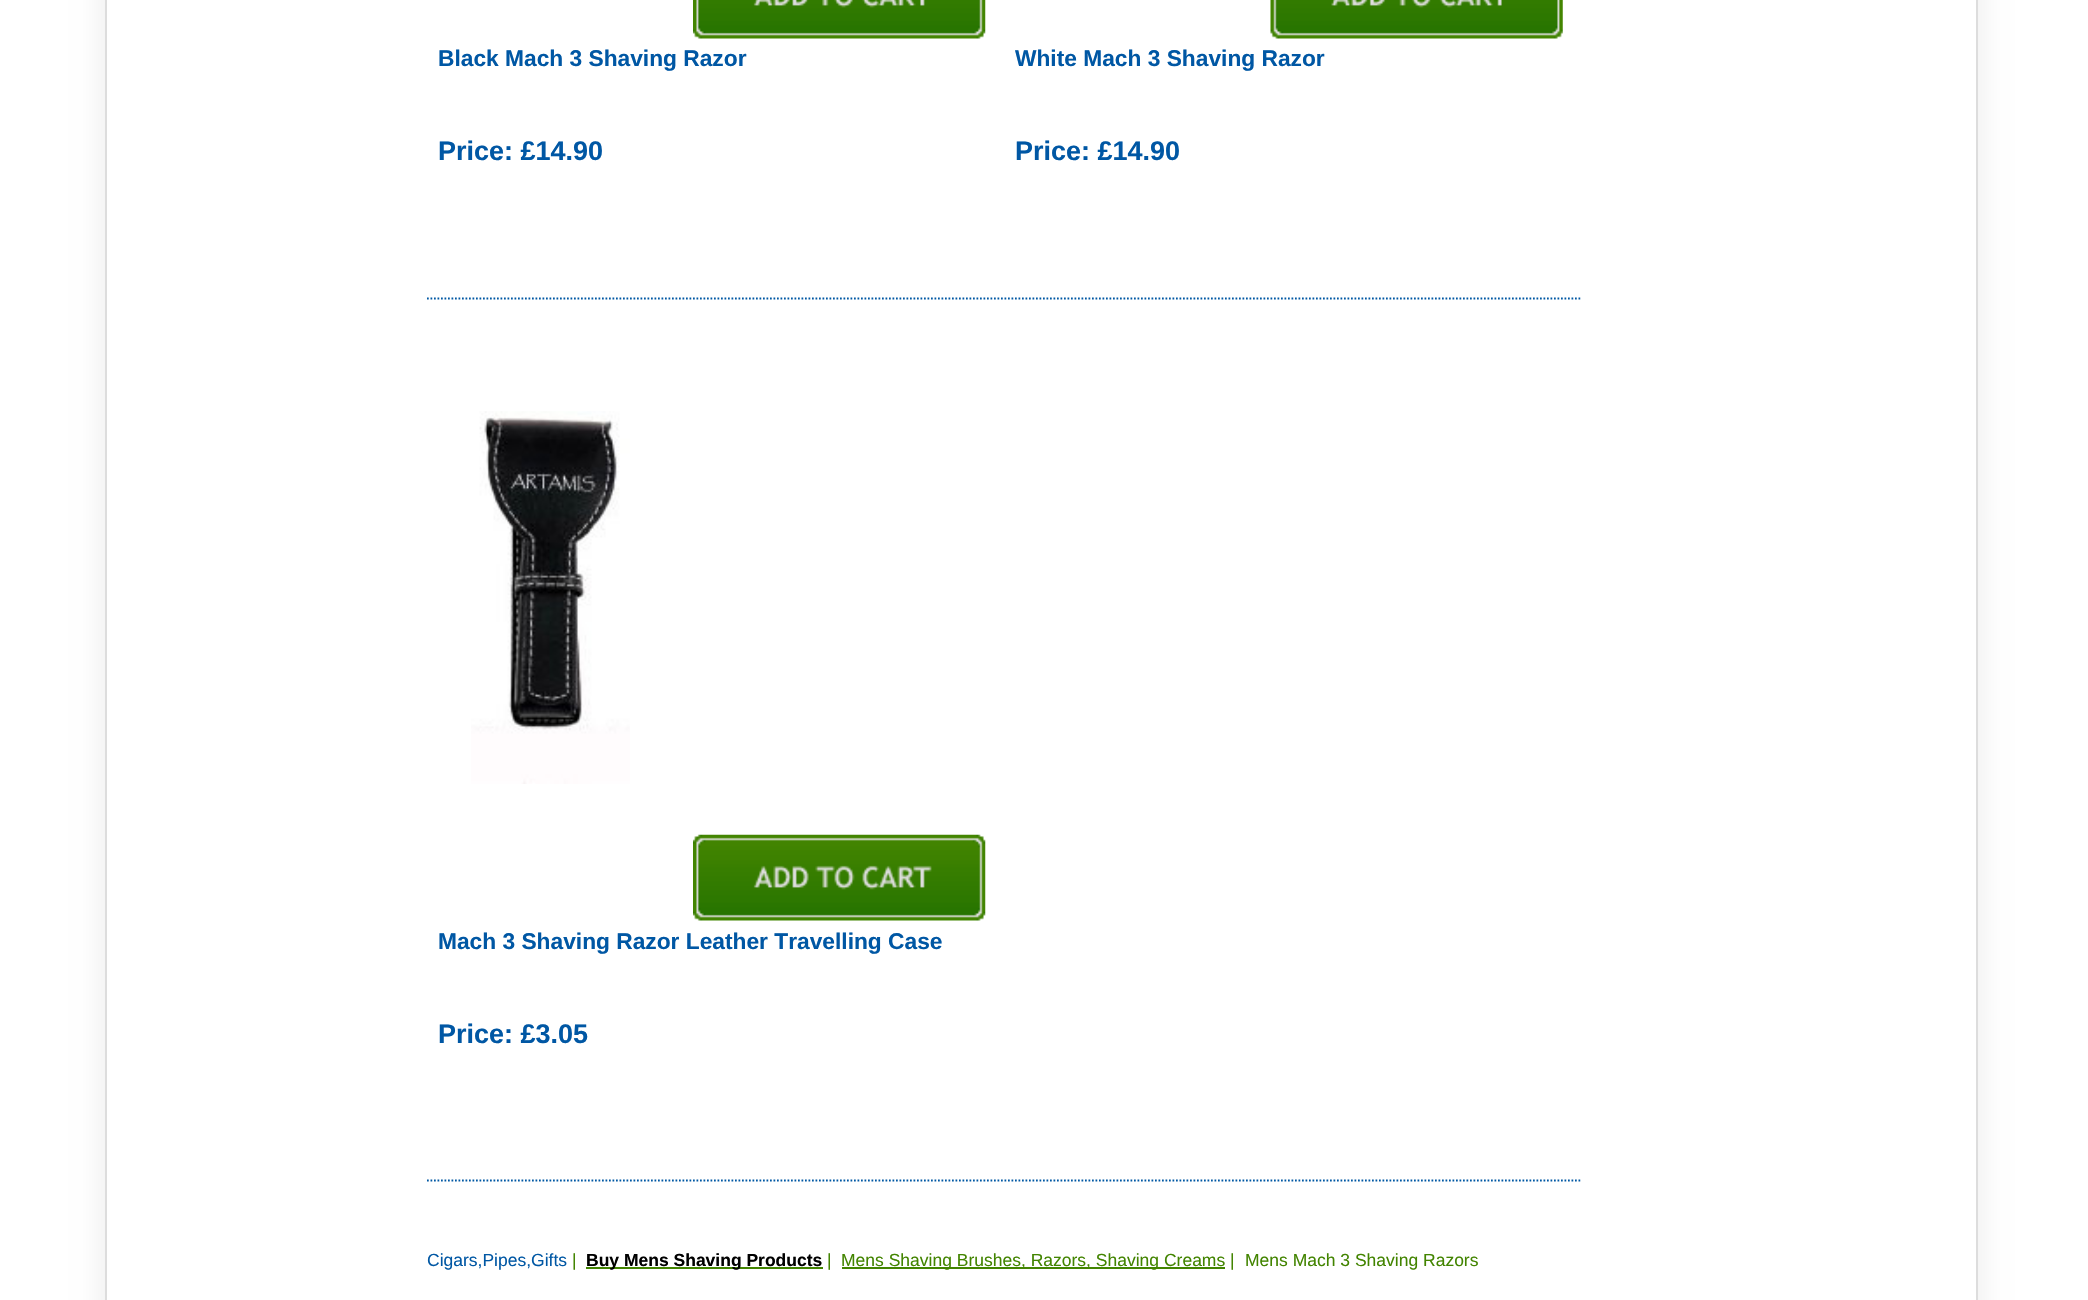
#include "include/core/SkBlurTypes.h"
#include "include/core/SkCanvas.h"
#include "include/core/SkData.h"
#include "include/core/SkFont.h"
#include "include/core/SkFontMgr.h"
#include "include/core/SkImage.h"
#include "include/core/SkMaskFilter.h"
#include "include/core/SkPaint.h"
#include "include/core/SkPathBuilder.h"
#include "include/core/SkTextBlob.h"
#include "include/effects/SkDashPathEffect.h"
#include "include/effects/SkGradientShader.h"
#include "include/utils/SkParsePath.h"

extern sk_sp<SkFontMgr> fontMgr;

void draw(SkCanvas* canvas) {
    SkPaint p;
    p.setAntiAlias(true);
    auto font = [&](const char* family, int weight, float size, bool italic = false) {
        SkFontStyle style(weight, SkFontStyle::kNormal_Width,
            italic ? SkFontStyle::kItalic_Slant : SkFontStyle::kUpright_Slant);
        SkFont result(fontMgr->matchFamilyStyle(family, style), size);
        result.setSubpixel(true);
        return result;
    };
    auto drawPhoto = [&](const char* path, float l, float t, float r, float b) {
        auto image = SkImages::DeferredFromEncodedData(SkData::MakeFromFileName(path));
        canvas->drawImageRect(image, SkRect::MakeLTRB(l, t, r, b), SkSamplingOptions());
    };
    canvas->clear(0xFFFFFFFF);
    p.setColor(0xFFF4F4F4);
    p.setMaskFilter(SkMaskFilter::MakeBlur(kNormal_SkBlurStyle, 9));
    canvas->drawRect(SkRect::MakeLTRB(95, -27, 1988, 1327), p);
    p.setMaskFilter(nullptr);
    {
        const struct { float l, t, r, b; SkColor color; } items[] = {
            {107, 0, 1976, 1300, 0xFFFFFFFF},
            {1976, 0, 1978, 1300, 0xFFDDDDDD},
            {105, 0, 107, 1300, 0xFFDDDDDD},
        };
        for (auto [l, t, r, b, color] : items) {
            p.setColor(color);
            canvas->drawRect(SkRect::MakeLTRB(l, t, r, b), p);
        }
    }
    drawPhoto("media/1.png", 693, 0, 986, 39);
    auto font1 = font("Liberation Sans", 700, 22.75f);
    p.setColor(0xFF0057A4);
    canvas->drawString("Black Mach 3 Shaving Razor", 438, 66, font1, p);
    auto font2 = font("Liberation Sans", 700, 27);
    canvas->drawString("Price: £14.90", 438, 160, font2, p);
    drawPhoto("media/2.png", 1270, 0, 1563, 39);
    canvas->drawString("White Mach 3 Shaving Razor", 1015, 66, font1, p);
    canvas->drawString("Price: £14.90", 1015, 160, font2, p);
    p.setStyle(SkPaint::kStroke_Style);
    p.setStrokeWidth(1.8f);
    p.setPathEffect(SkDashPathEffect::Make({{1.75f, 1.75f}}, 0));
    canvas->drawPath(SkPathBuilder().moveTo(427, 298.5f).lineTo(1582, 298.5f).detach(), p);
    p.setPathEffect(nullptr);
    drawPhoto("media/3.png", 471, 411, 630, 784);
    drawPhoto("media/4.png", 693, 834, 986, 921);
    p.setStyle(SkPaint::kFill_Style);
    canvas->drawString("Mach 3 Shaving Razor Leather Travelling Case", 438, 949, font1, p);
    canvas->drawString("Price: £3.05", 438, 1043, font2, p);
    p.setStyle(SkPaint::kStroke_Style);
    p.setPathEffect(SkDashPathEffect::Make({{1.75f, 1.75f}}, 0));
    canvas->drawPath(SkPathBuilder().moveTo(427, 1180.5f).lineTo(1582, 1180.5f).detach(), p);
    p.setPathEffect(nullptr);
    auto font3 = font("Liberation Sans", 400, 17.5f);
    p.setStyle(SkPaint::kFill_Style);
    canvas->drawString("Cigars,Pipes,Gifts", 427, 1266, font3, p);
    p.setColor(0xFF428400);
    canvas->drawString("|", 572, 1266, font3, p);
    canvas->drawRect(SkRect::MakeLTRB(586, 1267, 823, 1269), p);
    auto font4 = font("Liberation Sans", 700, 17.5f);
    p.setColor(0xFF000000);
    canvas->drawString("Buy Mens Shaving Products", 586, 1266, font4, p);
    p.setColor(0xFF428400);
    canvas->drawString("|", 827, 1266, font3, p);
    canvas->drawRect(SkRect::MakeLTRB(842, 1267, 1225, 1269), p);
    canvas->drawString("Mens Shaving Brushes, Razors, Shaving Creams |", 841, 1266, font3, p);
    canvas->drawString("Mens Mach 3 Shaving Razors", 1245, 1266, font3, p);
}
